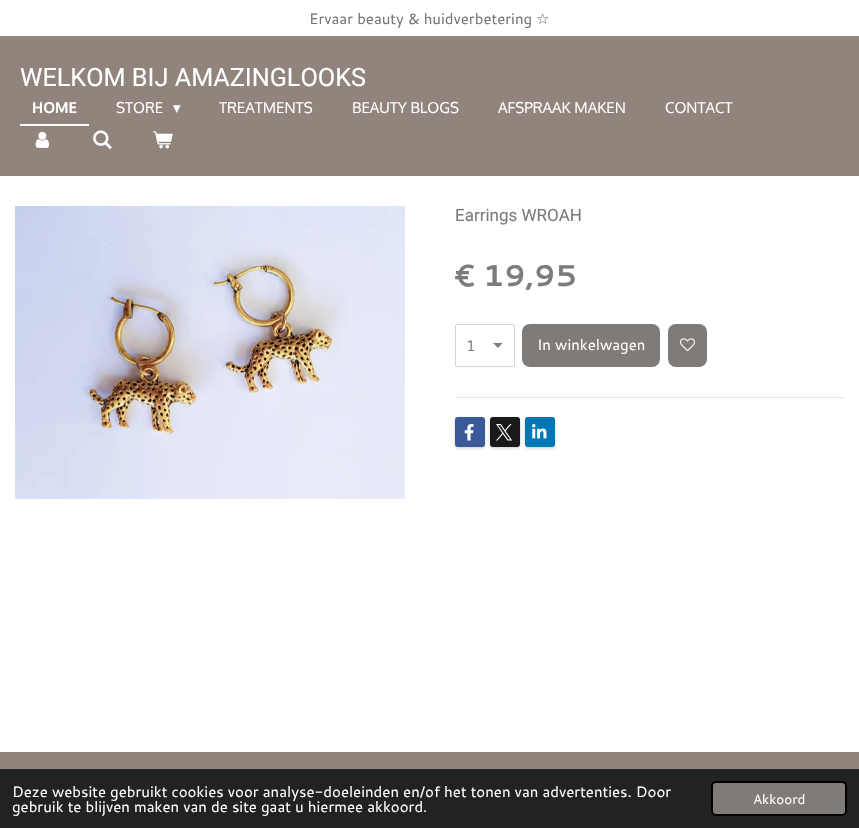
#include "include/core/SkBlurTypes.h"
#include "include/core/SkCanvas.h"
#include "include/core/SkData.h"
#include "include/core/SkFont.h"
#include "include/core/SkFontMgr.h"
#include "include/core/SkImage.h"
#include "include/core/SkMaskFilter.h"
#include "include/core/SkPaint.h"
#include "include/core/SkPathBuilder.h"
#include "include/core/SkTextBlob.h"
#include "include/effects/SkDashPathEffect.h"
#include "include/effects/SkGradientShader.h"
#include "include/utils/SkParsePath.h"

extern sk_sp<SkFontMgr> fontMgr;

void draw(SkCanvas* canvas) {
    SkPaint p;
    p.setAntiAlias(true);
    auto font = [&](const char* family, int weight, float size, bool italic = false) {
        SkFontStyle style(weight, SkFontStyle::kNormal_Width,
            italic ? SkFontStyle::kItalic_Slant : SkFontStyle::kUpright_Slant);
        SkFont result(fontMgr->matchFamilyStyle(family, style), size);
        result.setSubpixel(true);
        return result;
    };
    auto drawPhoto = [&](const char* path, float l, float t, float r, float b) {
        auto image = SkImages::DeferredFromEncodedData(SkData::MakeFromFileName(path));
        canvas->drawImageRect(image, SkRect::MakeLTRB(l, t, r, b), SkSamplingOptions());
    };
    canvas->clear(0xFF91847D);
    p.setColor(0xFFFFFFFF);
    canvas->drawRect(SkRect::MakeLTRB(0, 0, 859, 36), p);
    auto font1 = font("Cantarell", 400, 15);
    p.setColor(0xFF737373);
    canvas->drawString("Ervaar beauty & huidverbetering", 309, 24, font1, p);
    auto font2 = font("DejaVu Sans", 400, 15);
    canvas->drawString("☆", 536, 24, font2, p);
    auto font3 = font("Roboto", 400, 25.25f);
    p.setColor(0xFFFFFFFF);
    canvas->drawString("WELKOM BIJ AMAZINGLOOKS", 20, 86, font3, p);
    canvas->drawRect(SkRect::MakeLTRB(20, 124, 89, 126), p);
    auto font4 = font("Oxygen", 700, 15);
    canvas->drawString("HOME", 32, 113, font4, p);
    auto font5 = font("Oxygen", 400, 15);
    canvas->drawString("STORE", 116, 113, font5, p);
    canvas->drawString("▾", 173, 113, font2, p);
    {
        const struct { const char* s; float x, y; } items[] = {
            {"TREATMENTS", 219, 113},
            {"BEAUTY BLOGS", 352, 113},
            {"AFSPRAAK MAKEN", 498, 113},
            {"CONTACT", 665, 113},
        };
        for (auto [s, x, y] : items) {
            canvas->drawString(s, x, y, font5, p);
        }
    }
    drawPhoto("media/1.png", 35, 131, 49, 148);
    drawPhoto("media/2.png", 93, 130, 112, 150);
    drawPhoto("media/3.png", 153, 131, 173, 149);
    canvas->drawRect(SkRect::MakeLTRB(0, 176, 859, 752), p);
    drawPhoto("media/4.png", 15, 206, 405, 499);
    auto font6 = font("Roboto", 400, 17);
    p.setColor(0xFF7F7B78);
    canvas->drawString("Earrings WROAH", 455, 221, font6, p);
    auto font7 = font("Cantarell", 700, 30);
    canvas->drawString("€ 19,95", 455, 286, font7, p);
    canvas->drawPath(SkPathBuilder().moveTo(498, 348).lineTo(493, 343).lineTo(502.5f, 343).close().detach(), p);
    p.setStyle(SkPaint::kStroke_Style);
    p.setStrokeWidth(1);
    p.setColor(0xFFD3D3D3);
    canvas->drawRoundRect(SkRect::MakeLTRB(455.5f, 324.5f, 514.5f, 366.5f), 1.5f, 1.5f, p);
    p.setStyle(SkPaint::kFill_Style);
    p.setColor(0xFF7F7B78);
    canvas->drawString("1", 466, 351, font1, p);
    canvas->drawRoundRect(SkRect::MakeLTRB(522, 324, 660, 367), 8, 8, p);
    p.setColor(0xFFFFFFFF);
    canvas->drawString("In winkelwagen", 537, 350, font1, p);
    p.setColor(0xFF7F7B78);
    canvas->drawRoundRect(SkRect::MakeLTRB(668, 324, 707, 367), 8, 8, p);
    drawPhoto("media/5.png", 680, 338, 695, 352);
    p.setColor(0xFFE5E5E4);
    canvas->drawRect(SkRect::MakeLTRB(455, 397, 844, 398), p);
    p.setColor(0x33000000);
    p.setMaskFilter(SkMaskFilter::MakeBlur(kNormal_SkBlurStyle, 1.5f));
    canvas->drawRoundRect(SkRect::MakeLTRB(455, 418, 485, 448), 3, 3, p);
    p.setMaskFilter(nullptr);
    p.setColor(0xFF3B5998);
    canvas->drawRoundRect(SkRect::MakeLTRB(455, 417, 485, 447), 3, 3, p);
    drawPhoto("media/6.png", 464, 424, 474, 441);
    p.setColor(0x33000000);
    p.setMaskFilter(SkMaskFilter::MakeBlur(kNormal_SkBlurStyle, 1.5f));
    canvas->drawRoundRect(SkRect::MakeLTRB(490, 418, 520, 448), 3, 3, p);
    p.setMaskFilter(nullptr);
    p.setColor(0xFF1A1A1A);
    canvas->drawRoundRect(SkRect::MakeLTRB(490, 417, 520, 447), 3, 3, p);
    drawPhoto("media/7.png", 496, 424, 512, 441);
    p.setColor(0x33000000);
    p.setMaskFilter(SkMaskFilter::MakeBlur(kNormal_SkBlurStyle, 1.5f));
    canvas->drawRoundRect(SkRect::MakeLTRB(525, 418, 555, 448), 3, 3, p);
    p.setMaskFilter(nullptr);
    p.setColor(0xFF0077B5);
    canvas->drawRoundRect(SkRect::MakeLTRB(525, 417, 555, 447), 3, 3, p);
    drawPhoto("media/8.png", 532, 424, 547, 439);
    p.setColor(0xFF222222);
    canvas->drawRect(SkRect::MakeLTRB(0, 769, 859, 828), p);
    p.setColor(0xFFFFFFFF);
    canvas->drawString("Deze website gebruikt cookies voor analyse-doeleinden en/of het tonen van advertenties. Door", 12, 797, font1, p);
    canvas->drawString("gebruik te blijven maken van de site gaat u hiermee akkoord.", 12, 812, font1, p);
    p.setColor(0xFF7F7B78);
    canvas->drawRoundRect(SkRect::MakeLTRB(712, 782, 846, 815), 4, 4, p);
    p.setStyle(SkPaint::kStroke_Style);
    p.setStrokeWidth(2);
    p.setColor(0xFF000000);
    canvas->drawRoundRect(SkRect::MakeLTRB(712, 782, 846, 815), 4, 4, p);
    auto font8 = font("Cantarell", 400, 13.5f);
    p.setStyle(SkPaint::kFill_Style);
    p.setColor(0xFFFFFFFF);
    canvas->drawString("Akkoord", 753, 804, font8, p);
}
